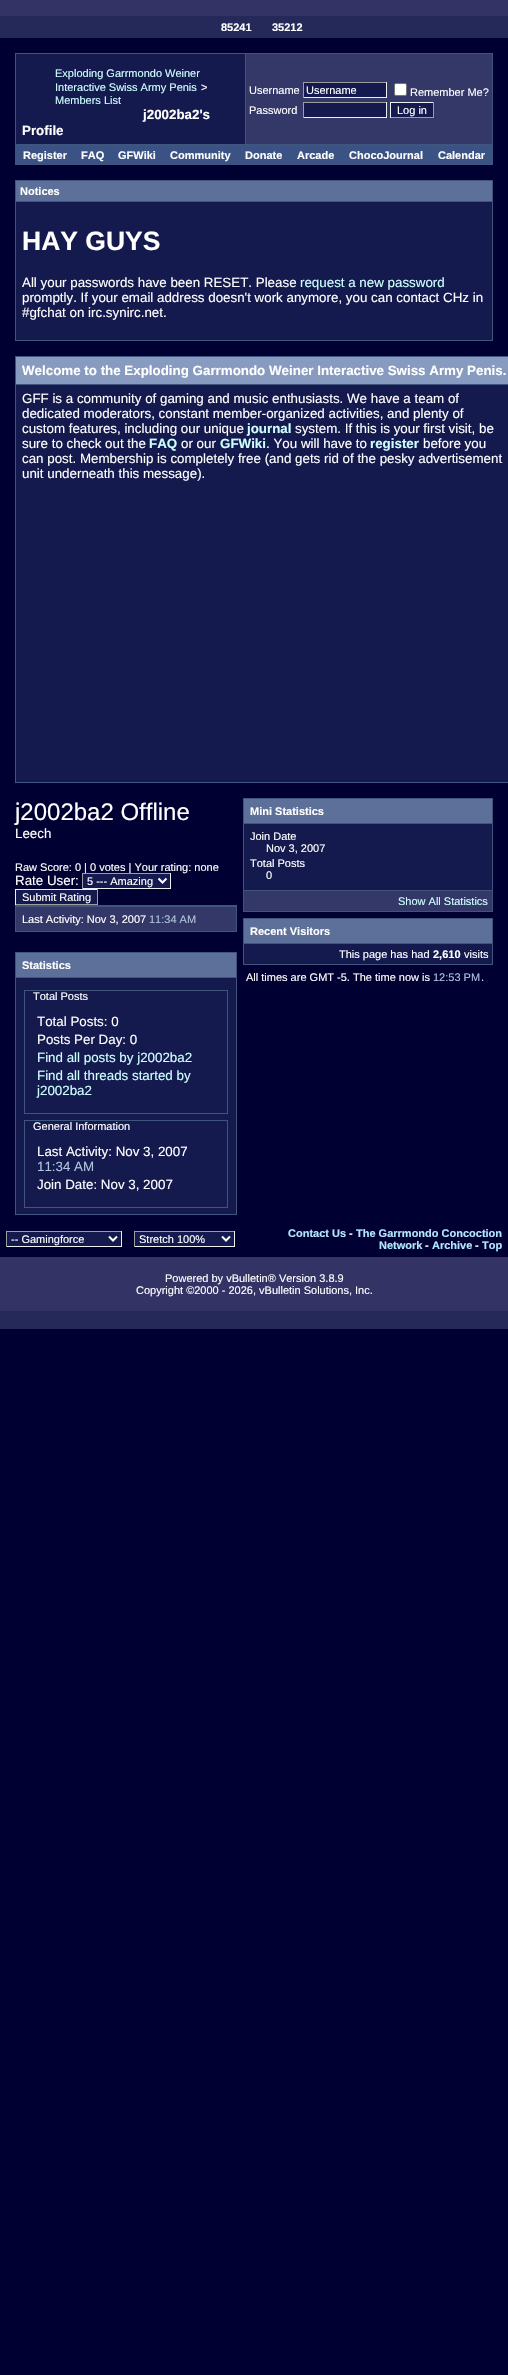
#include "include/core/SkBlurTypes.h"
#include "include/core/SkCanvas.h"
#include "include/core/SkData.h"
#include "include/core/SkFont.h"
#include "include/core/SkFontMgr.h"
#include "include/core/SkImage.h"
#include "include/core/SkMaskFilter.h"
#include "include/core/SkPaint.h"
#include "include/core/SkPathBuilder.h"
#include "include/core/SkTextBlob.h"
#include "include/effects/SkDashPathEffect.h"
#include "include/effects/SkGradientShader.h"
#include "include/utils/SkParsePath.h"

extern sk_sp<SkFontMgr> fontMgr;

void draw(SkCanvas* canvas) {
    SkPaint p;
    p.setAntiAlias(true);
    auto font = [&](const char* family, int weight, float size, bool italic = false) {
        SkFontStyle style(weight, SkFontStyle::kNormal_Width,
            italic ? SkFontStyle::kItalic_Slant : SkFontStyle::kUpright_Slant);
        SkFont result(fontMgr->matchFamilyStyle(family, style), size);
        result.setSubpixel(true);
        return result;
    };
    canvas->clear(0xFF000033);
    p.setColor(0xFF333366);
    canvas->drawRect(SkRect::MakeLTRB(0, 0, 508, 16), p);
    p.setColor(0xFF25295A);
    canvas->drawRect(SkRect::MakeLTRB(0, 16, 508, 38), p);
    auto font1 = font("Liberation Sans", 700, 11);
    p.setColor(0xFFFFFFFF);
    canvas->drawString("85241", 221, 31, font1, p);
    canvas->drawString("35212", 272, 31, font1, p);
    p.setColor(0xFF40557E);
    canvas->drawRect(SkRect::MakeLTRB(15, 53, 493, 165), p);
    p.setColor(0xFF14194E);
    canvas->drawRect(SkRect::MakeLTRB(16, 54, 245, 144), p);
    auto font2 = font("Liberation Sans", 400, 11);
    p.setColor(0xFFCEFFFF);
    canvas->drawString("Exploding Garrmondo Weiner", 55, 77, font2, p);
    canvas->drawString("Interactive Swiss Army Penis", 55, 91, font2, p);
    p.setColor(0xFFFFFFFF);
    canvas->drawString(">", 201, 91, font2, p);
    p.setColor(0xFFCEFFFF);
    canvas->drawString("Members List", 55, 104, font2, p);
    auto font3 = font("Liberation Sans", 700, 13.35f);
    p.setColor(0xFFFFFFFF);
    canvas->drawString("j2002ba2's", 143, 119, font3, p);
    canvas->drawString("Profile", 22, 135, font3, p);
    p.setColor(0xFF343868);
    canvas->drawRect(SkRect::MakeLTRB(246, 54, 492, 144), p);
    p.setColor(0xFFFFFFFF);
    canvas->drawString("Username", 249, 94, font2, p);
    {
        const struct { float l, t, r, b; SkColor color; } items[] = {
            {304, 83, 386, 97, 0xFF14194E},
            {303, 82, 387, 83, 0xFF9D9D9F},
            {386, 82, 387, 98, 0xFFEEEFF0},
            {303, 97, 387, 98, 0xFFEEEFF0},
            {303, 82, 304, 98, 0xFF9D9D9F},
        };
        for (auto [l, t, r, b, color] : items) {
            p.setColor(color);
            canvas->drawRect(SkRect::MakeLTRB(l, t, r, b), p);
        }
    }
    p.setColor(0xFFFFFFFF);
    canvas->drawString("Username", 306, 94, font2, p);
    canvas->drawRoundRect(SkRect::MakeLTRB(394.5f, 83.5f, 406.5f, 95.5f), 1.5f, 1.5f, p);
    p.setStyle(SkPaint::kStroke_Style);
    p.setStrokeWidth(1);
    p.setColor(0xFF767676);
    canvas->drawRoundRect(SkRect::MakeLTRB(394.5f, 83.5f, 406.5f, 95.5f), 1.5f, 1.5f, p);
    p.setStyle(SkPaint::kFill_Style);
    p.setColor(0xFFFFFFFF);
    canvas->drawString("Remember Me?", 410, 96, font2, p);
    canvas->drawString("Password", 249, 114, font2, p);
    {
        const struct { float l, t, r, b; SkColor color; } items[] = {
            {304, 103, 386, 117, 0xFF14194E},
            {303, 102, 387, 103, 0xFF9D9D9F},
            {386, 102, 387, 118, 0xFFEEEFF0},
            {303, 117, 387, 118, 0xFFEEEFF0},
            {303, 102, 304, 118, 0xFF9D9D9F},
            {391, 103, 433, 117, 0xFF14194E},
            {390, 102, 434, 103, 0xFFEEEFF0},
            {433, 102, 434, 118, 0xFF9D9D9F},
            {390, 117, 434, 118, 0xFF9D9D9F},
            {390, 102, 391, 118, 0xFFEEEFF0},
        };
        for (auto [l, t, r, b, color] : items) {
            p.setColor(color);
            canvas->drawRect(SkRect::MakeLTRB(l, t, r, b), p);
        }
    }
    p.setColor(0xFFFFFFFF);
    canvas->drawString("Log in", 397, 114, font2, p);
    p.setColor(0xFF3A5284);
    canvas->drawRect(SkRect::MakeLTRB(16, 146, 492, 164), p);
    p.setColor(0xFFFFFFFF);
    {
        const struct { const char* s; float x, y; } items[] = {
            {"Register", 23, 159},
            {"FAQ", 81, 159},
            {"GFWiki", 118, 159},
            {"Community", 170, 159},
            {"Donate", 245, 159},
            {"Arcade", 297, 159},
            {"ChocoJournal", 349, 159},
            {"Calendar", 438, 159},
        };
        for (auto [s, x, y] : items) {
            canvas->drawString(s, x, y, font1, p);
        }
    }
    p.setColor(0xFF40557E);
    canvas->drawRect(SkRect::MakeLTRB(15, 180, 493, 341), p);
    p.setColor(0xFF5C7099);
    canvas->drawRect(SkRect::MakeLTRB(16, 181, 492, 201), p);
    p.setColor(0xFFFFFFFF);
    canvas->drawString("Notices", 20, 195, font1, p);
    p.setColor(0xFF14194E);
    canvas->drawRect(SkRect::MakeLTRB(16, 202, 492, 340), p);
    auto font4 = font("Liberation Sans", 700, 26.5f);
    p.setColor(0xFFFFFFFF);
    canvas->drawString("HAY GUYS", 22, 250, font4, p);
    auto font5 = font("Liberation Sans", 400, 13.35f);
    canvas->drawString("All your passwords have been RESET. Please", 22, 287, font5, p);
    p.setColor(0xFFCEFFFF);
    canvas->drawString("request a new password", 300, 287, font5, p);
    p.setColor(0xFFFFFFFF);
    canvas->drawString("promptly. If your email address doesn't work anymore, you can contact CHz in", 22, 302, font5, p);
    canvas->drawString("#gfchat on irc.synirc.net.", 22, 317, font5, p);
    p.setColor(0xFF40557E);
    canvas->drawRect(SkRect::MakeLTRB(15, 356, 508, 783), p);
    p.setColor(0xFF869BBF);
    canvas->drawRect(SkRect::MakeLTRB(16, 357, 508, 384), p);
    p.setColor(0xFFFFFFFF);
    canvas->drawString("Welcome to the Exploding Garrmondo Weiner Interactive Swiss Army Penis.", 22, 375, font3, p);
    p.setColor(0xFF14194E);
    canvas->drawRect(SkRect::MakeLTRB(16, 385, 508, 782), p);
    p.setColor(0xFFFFFFFF);
    {
        const struct { const char* s; float x, y; } items[] = {
            {"GFF is a community of gaming and music enthusiasts. We have a team of", 22, 403},
            {"dedicated moderators, constant member-organized activities, and plenty of", 22, 418},
            {"custom features, including our unique", 22, 433},
        };
        for (auto [s, x, y] : items) {
            canvas->drawString(s, x, y, font5, p);
        }
    }
    p.setColor(0xFFCEFFFF);
    canvas->drawString("journal", 247, 433, font3, p);
    p.setColor(0xFFFFFFFF);
    canvas->drawString("system. If this is your first visit, be", 295, 433, font5, p);
    canvas->drawString("sure to check out the", 22, 448, font5, p);
    p.setColor(0xFFCEFFFF);
    canvas->drawString("FAQ", 149, 448, font3, p);
    p.setColor(0xFFFFFFFF);
    canvas->drawString("or our", 181, 448, font5, p);
    p.setColor(0xFFCEFFFF);
    canvas->drawString("GFWiki", 220, 448, font3, p);
    p.setColor(0xFFFFFFFF);
    canvas->drawString(". You will have to", 266, 448, font5, p);
    p.setColor(0xFFCEFFFF);
    canvas->drawString("register", 370, 448, font3, p);
    p.setColor(0xFFFFFFFF);
    {
        const struct { const char* s; float x, y; } items[] = {
            {"before you", 423, 448},
            {"can post. Membership is completely free (and gets rid of the pesky advertisement", 22, 463},
            {"unit underneath this message).", 22, 478},
        };
        for (auto [s, x, y] : items) {
            canvas->drawString(s, x, y, font5, p);
        }
    }
    auto font6 = font("Liberation Sans", 400, 24);
    canvas->drawString("j2002ba2 Offline", 15, 820, font6, p);
    canvas->drawString("Leech", 15, 838, font5, p);
    canvas->drawString("Raw Score: 0 | 0 votes | Your rating: none", 15, 871, font2, p);
    canvas->drawString("Rate User:", 15, 885, font5, p);
    {
        const struct { float l, t, r, b; SkColor color; } items[] = {
            {83, 874, 170, 888, 0xFF14194E},
            {82, 873, 171, 874, 0xFF9D9D9F},
            {170, 873, 171, 889, 0xFFEEEFF0},
            {82, 888, 171, 889, 0xFFEEEFF0},
            {82, 873, 83, 889, 0xFF9D9D9F},
        };
        for (auto [l, t, r, b, color] : items) {
            p.setColor(color);
            canvas->drawRect(SkRect::MakeLTRB(l, t, r, b), p);
        }
    }
    p.setStyle(SkPaint::kStroke_Style);
    p.setStrokeWidth(2);
    p.setColor(0xFFFFFFFF);
    canvas->drawPath(SkPathBuilder().moveTo(158.5f, 878.5f).lineTo(162.5f, 882.5f).lineTo(166.5f, 878.5f).detach(), p);
    p.setStyle(SkPaint::kFill_Style);
    canvas->drawString("5 --- Amazing", 87, 885, font2, p);
    {
        const struct { float l, t, r, b; SkColor color; } items[] = {
            {16, 890, 97, 904, 0xFF14194E},
            {15, 889, 98, 890, 0xFFEEEFF0},
            {97, 889, 98, 905, 0xFF9D9D9F},
            {15, 904, 98, 905, 0xFF9D9D9F},
            {15, 889, 16, 905, 0xFFEEEFF0},
        };
        for (auto [l, t, r, b, color] : items) {
            p.setColor(color);
            canvas->drawRect(SkRect::MakeLTRB(l, t, r, b), p);
        }
    }
    p.setColor(0xFFFFFFFF);
    canvas->drawString("Submit Rating", 22, 901, font2, p);
    p.setColor(0xFF40557E);
    canvas->drawRect(SkRect::MakeLTRB(15, 905, 237, 932), p);
    p.setColor(0xFF343868);
    canvas->drawRect(SkRect::MakeLTRB(16, 907, 236, 931), p);
    p.setColor(0xFFFFFFFF);
    canvas->drawString("Last Activity: Nov 3, 2007", 22, 923, font2, p);
    p.setColor(0xFFB0C4DE);
    canvas->drawString("11:34 AM", 149, 923, font2, p);
    p.setColor(0xFF40557E);
    canvas->drawRect(SkRect::MakeLTRB(15, 952, 237, 1215), p);
    p.setColor(0xFF5C7099);
    canvas->drawRect(SkRect::MakeLTRB(16, 953, 236, 977), p);
    p.setColor(0xFFFFFFFF);
    canvas->drawString("Statistics", 22, 969, font1, p);
    p.setColor(0xFF14194E);
    canvas->drawRect(SkRect::MakeLTRB(16, 978, 236, 1214), p);
    p.setStyle(SkPaint::kStroke_Style);
    p.setStrokeWidth(1);
    p.setColor(0xFF40557E);
    canvas->drawRect(SkRect::MakeLTRB(24.5f, 990.5f, 227.5f, 1113.5f), p);
    p.setStyle(SkPaint::kFill_Style);
    p.setColor(0xFFFFFFFF);
    canvas->drawString("Total Posts", 33, 1000, font2, p);
    canvas->drawString("Total Posts: 0", 37, 1026, font5, p);
    canvas->drawString("Posts Per Day: 0", 37, 1044, font5, p);
    p.setColor(0xFFCEFFFF);
    {
        const struct { const char* s; float x, y; } items[] = {
            {"Find all posts by j2002ba2", 37, 1062},
            {"Find all threads started by", 37, 1080},
            {"j2002ba2", 37, 1095},
        };
        for (auto [s, x, y] : items) {
            canvas->drawString(s, x, y, font5, p);
        }
    }
    p.setStyle(SkPaint::kStroke_Style);
    p.setColor(0xFF40557E);
    canvas->drawRect(SkRect::MakeLTRB(24.5f, 1120.5f, 227.5f, 1207.5f), p);
    p.setStyle(SkPaint::kFill_Style);
    p.setColor(0xFFFFFFFF);
    canvas->drawString("General Information", 33, 1130, font2, p);
    canvas->drawString("Last Activity: Nov 3, 2007", 37, 1156, font5, p);
    p.setColor(0xFFB0C4DE);
    canvas->drawString("11:34 AM", 37, 1171, font5, p);
    p.setColor(0xFFFFFFFF);
    canvas->drawString("Join Date: Nov 3, 2007", 37, 1189, font5, p);
    p.setColor(0xFF40557E);
    canvas->drawRect(SkRect::MakeLTRB(243, 798, 493, 912), p);
    p.setColor(0xFF5C7099);
    canvas->drawRect(SkRect::MakeLTRB(244, 799, 492, 823), p);
    p.setColor(0xFFFFFFFF);
    canvas->drawString("Mini Statistics", 250, 815, font1, p);
    p.setColor(0xFF14194E);
    canvas->drawRect(SkRect::MakeLTRB(244, 824, 492, 890), p);
    p.setColor(0xFFFFFFFF);
    {
        const struct { const char* s; float x, y; } items[] = {
            {"Join Date", 250, 840},
            {"Nov 3, 2007", 266, 852},
            {"Total Posts", 250, 867},
            {"0", 266, 879},
        };
        for (auto [s, x, y] : items) {
            canvas->drawString(s, x, y, font2, p);
        }
    }
    p.setColor(0xFF343868);
    canvas->drawRect(SkRect::MakeLTRB(244, 891, 492, 911), p);
    p.setColor(0xFFCEFFFF);
    canvas->drawString("Show All Statistics", 398, 905, font2, p);
    p.setColor(0xFF40557E);
    canvas->drawRect(SkRect::MakeLTRB(243, 918, 493, 965), p);
    p.setColor(0xFF5C7099);
    canvas->drawRect(SkRect::MakeLTRB(244, 919, 492, 943), p);
    p.setColor(0xFFFFFFFF);
    canvas->drawString("Recent Visitors", 250, 935, font1, p);
    p.setColor(0xFF14194E);
    canvas->drawRect(SkRect::MakeLTRB(244, 944, 492, 964), p);
    p.setColor(0xFFFFFFFF);
    canvas->drawString("This page has had", 339, 958, font2, p);
    canvas->drawString("2,610", 433, 958, font1, p);
    canvas->drawString("visits", 464, 958, font2, p);
    canvas->drawString("All times are GMT -5. The time now is", 246, 981, font2, p);
    p.setColor(0xFFB0C4DE);
    canvas->drawString("12:53 PM", 433, 981, font2, p);
    p.setColor(0xFFFFFFFF);
    canvas->drawString(".", 481, 981, font2, p);
    {
        const struct { float l, t, r, b; SkColor color; } items[] = {
            {7, 1232, 121, 1246, 0xFF14194E},
            {6, 1231, 122, 1232, 0xFF9D9D9F},
            {121, 1231, 122, 1247, 0xFFEEEFF0},
            {6, 1246, 122, 1247, 0xFFEEEFF0},
            {6, 1231, 7, 1247, 0xFF9D9D9F},
        };
        for (auto [l, t, r, b, color] : items) {
            p.setColor(color);
            canvas->drawRect(SkRect::MakeLTRB(l, t, r, b), p);
        }
    }
    p.setStyle(SkPaint::kStroke_Style);
    p.setStrokeWidth(2);
    p.setColor(0xFFFFFFFF);
    canvas->drawPath(SkPathBuilder().moveTo(109, 1236.5f).lineTo(113, 1240.5f).lineTo(117, 1236.5f).detach(), p);
    p.setStyle(SkPaint::kFill_Style);
    canvas->drawString("-- Gamingforce", 11, 1243, font2, p);
    {
        const struct { float l, t, r, b; SkColor color; } items[] = {
            {135, 1232, 234, 1246, 0xFF14194E},
            {134, 1231, 235, 1232, 0xFF9D9D9F},
            {234, 1231, 235, 1247, 0xFFEEEFF0},
            {134, 1246, 235, 1247, 0xFFEEEFF0},
            {134, 1231, 135, 1247, 0xFF9D9D9F},
        };
        for (auto [l, t, r, b, color] : items) {
            p.setColor(color);
            canvas->drawRect(SkRect::MakeLTRB(l, t, r, b), p);
        }
    }
    p.setStyle(SkPaint::kStroke_Style);
    p.setColor(0xFFFFFFFF);
    canvas->drawPath(SkPathBuilder().moveTo(222, 1236.5f).lineTo(226, 1240.5f).lineTo(230, 1236.5f).detach(), p);
    p.setStyle(SkPaint::kFill_Style);
    canvas->drawString("Stretch 100%", 139, 1243, font2, p);
    p.setColor(0xFFB1E8FF);
    canvas->drawString("Contact Us", 288, 1237, font1, p);
    p.setColor(0xFFFFFFFF);
    canvas->drawString("-", 349, 1237, font1, p);
    p.setColor(0xFFB1E8FF);
    canvas->drawString("The Garrmondo Concoction", 356, 1237, font1, p);
    canvas->drawString("Network", 379, 1249, font1, p);
    p.setColor(0xFFFFFFFF);
    canvas->drawString("-", 425, 1249, font1, p);
    p.setColor(0xFFB1E8FF);
    canvas->drawString("Archive", 432, 1249, font1, p);
    p.setColor(0xFFFFFFFF);
    canvas->drawString("-", 475, 1249, font1, p);
    p.setColor(0xFFB1E8FF);
    canvas->drawString("Top", 482, 1249, font1, p);
    p.setColor(0xFF333366);
    canvas->drawRect(SkRect::MakeLTRB(0, 1257, 508, 1311), p);
    p.setColor(0xFFFFFFFF);
    canvas->drawString("Powered by vBulletin® Version 3.8.9", 165, 1282, font2, p);
    canvas->drawString("Copyright ©2000 - 2026, vBulletin Solutions, Inc.", 136, 1294, font2, p);
    p.setColor(0xFF25295A);
    canvas->drawRect(SkRect::MakeLTRB(0, 1311, 508, 1329), p);
}
